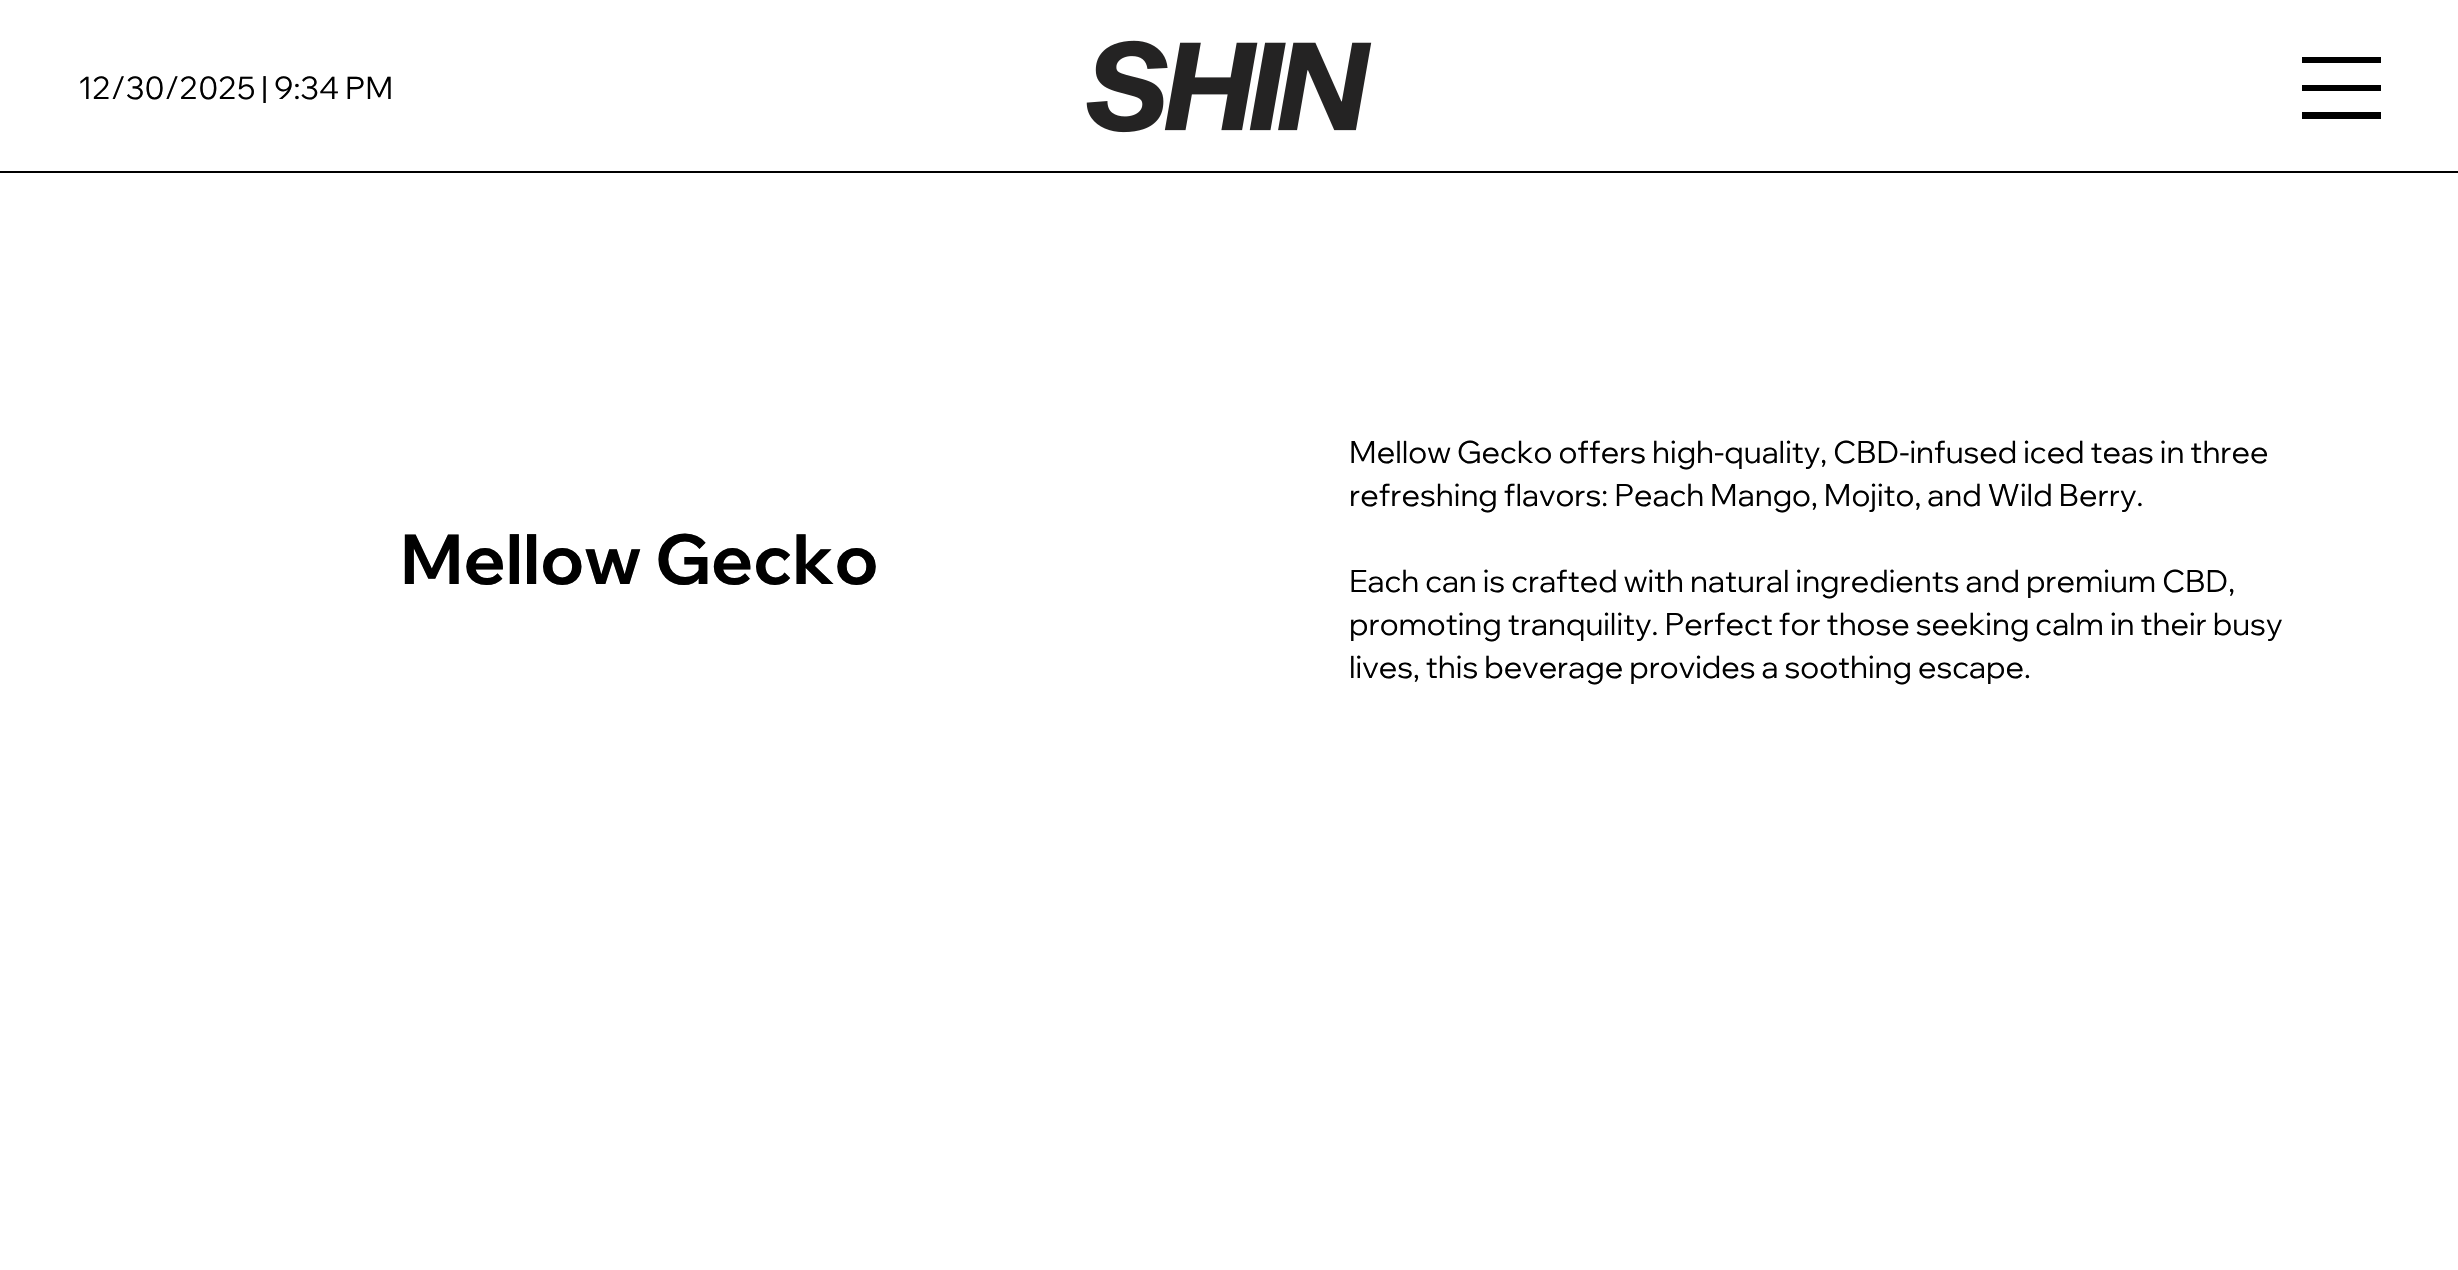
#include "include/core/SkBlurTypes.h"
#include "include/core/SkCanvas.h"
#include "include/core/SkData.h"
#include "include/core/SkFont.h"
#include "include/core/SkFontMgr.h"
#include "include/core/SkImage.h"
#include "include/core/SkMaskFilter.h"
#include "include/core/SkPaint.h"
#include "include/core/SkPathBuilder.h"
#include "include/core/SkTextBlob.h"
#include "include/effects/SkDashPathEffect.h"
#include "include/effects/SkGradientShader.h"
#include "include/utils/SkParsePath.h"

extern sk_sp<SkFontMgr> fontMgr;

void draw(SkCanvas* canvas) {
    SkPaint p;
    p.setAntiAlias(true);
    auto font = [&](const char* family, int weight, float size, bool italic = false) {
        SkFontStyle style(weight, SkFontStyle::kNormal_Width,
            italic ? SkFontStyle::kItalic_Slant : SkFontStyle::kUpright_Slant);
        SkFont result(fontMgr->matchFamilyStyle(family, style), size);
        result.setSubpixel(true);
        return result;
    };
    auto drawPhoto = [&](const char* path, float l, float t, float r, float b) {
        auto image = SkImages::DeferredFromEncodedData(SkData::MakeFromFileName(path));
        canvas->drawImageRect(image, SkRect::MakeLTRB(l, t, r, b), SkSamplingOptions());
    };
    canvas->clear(0xFFFFFFFF);
    drawPhoto("media/1.png", 1086, 40, 1372, 133);
    p.setColor(0xFF000000);
    canvas->drawRect(SkRect::MakeLTRB(0, 171, 2458, 173), p);
    auto font1 = font("Wix Madefor Display", 400, 31.1f);
    canvas->drawString("12/30/2025 | 9:34 PM", 78, 99, font1, p);
    {
        const struct { float l, t, r, b; SkColor color; } items[] = {
            {2302, 57, 2381, 63, 0xFF000000},
            {2302, 85, 2381, 91, 0xFF000000},
            {2302, 112, 2381, 119, 0xFF000000},
        };
        for (auto [l, t, r, b, color] : items) {
            p.setColor(color);
            canvas->drawRect(SkRect::MakeLTRB(l, t, r, b), p);
        }
    }
    auto font2 = font("Wix Madefor Display", 700, 69.25f);
    canvas->drawString("Mellow Gecko", 400, 584, font2, p);
    auto font3 = font("Wix Madefor Display", 400, 30.75f);
    {
        const struct { const char* s; float x, y; } items[] = {
            {"Mellow Gecko offers high-quality, CBD-infused iced teas in three", 1349, 463},
            {"refreshing flavors: Peach Mango, Mojito, and Wild Berry.", 1349, 506},
            {"Each can is crafted with natural ingredients and premium CBD,", 1349, 592},
            {"promoting tranquility. Perfect for those seeking calm in their busy", 1349, 635},
            {"lives, this beverage provides a soothing escape.", 1349, 678},
        };
        for (auto [s, x, y] : items) {
            canvas->drawString(s, x, y, font3, p);
        }
    }
}
